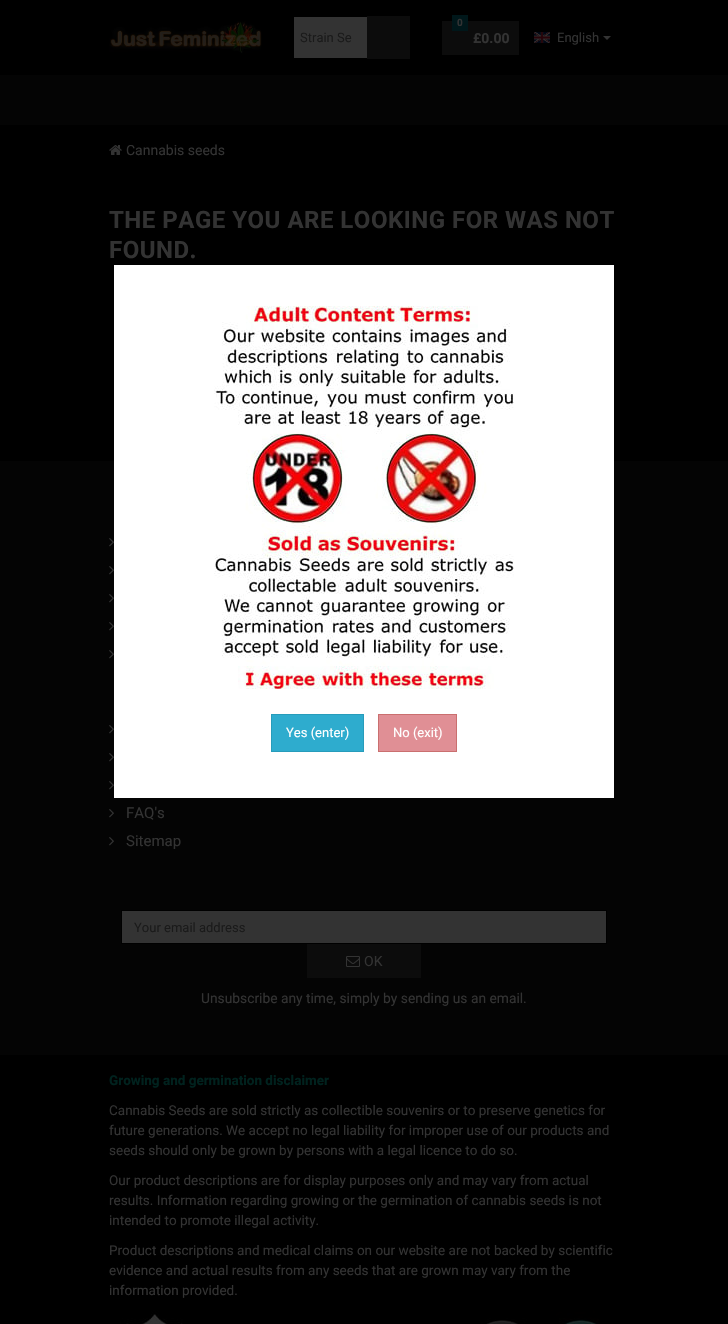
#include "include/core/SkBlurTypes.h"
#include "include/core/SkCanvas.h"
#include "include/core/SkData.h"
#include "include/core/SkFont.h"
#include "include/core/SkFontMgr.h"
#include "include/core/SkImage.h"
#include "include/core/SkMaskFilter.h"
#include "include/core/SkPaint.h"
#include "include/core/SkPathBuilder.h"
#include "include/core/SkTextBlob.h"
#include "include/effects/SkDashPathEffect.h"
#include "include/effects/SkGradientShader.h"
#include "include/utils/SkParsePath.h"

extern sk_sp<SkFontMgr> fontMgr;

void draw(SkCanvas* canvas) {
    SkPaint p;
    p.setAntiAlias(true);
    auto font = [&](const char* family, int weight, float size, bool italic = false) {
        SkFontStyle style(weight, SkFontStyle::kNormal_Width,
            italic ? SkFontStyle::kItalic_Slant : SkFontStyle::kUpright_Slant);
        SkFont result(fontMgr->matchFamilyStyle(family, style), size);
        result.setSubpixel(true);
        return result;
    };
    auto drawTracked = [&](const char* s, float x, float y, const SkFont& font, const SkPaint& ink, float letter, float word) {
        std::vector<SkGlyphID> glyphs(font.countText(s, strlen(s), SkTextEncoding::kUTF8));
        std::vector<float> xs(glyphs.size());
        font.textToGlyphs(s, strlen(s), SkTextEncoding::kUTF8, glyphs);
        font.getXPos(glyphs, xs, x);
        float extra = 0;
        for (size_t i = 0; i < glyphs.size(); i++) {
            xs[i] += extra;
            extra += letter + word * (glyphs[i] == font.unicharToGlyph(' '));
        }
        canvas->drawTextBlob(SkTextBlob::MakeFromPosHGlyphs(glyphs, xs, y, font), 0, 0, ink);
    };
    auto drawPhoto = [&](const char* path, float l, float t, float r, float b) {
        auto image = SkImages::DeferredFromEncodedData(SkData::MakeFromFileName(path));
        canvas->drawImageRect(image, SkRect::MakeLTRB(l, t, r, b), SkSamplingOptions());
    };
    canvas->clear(0xFF000000);
    drawPhoto("media/1.png", 109, 21, 262, 54);
    p.setColor(0xFF333333);
    canvas->drawRect(SkRect::MakeLTRB(294, 17, 367, 58), p);
    auto font1 = font("Roboto", 400, 13);
    p.setColor(0xFF1A1A1A);
    canvas->drawString("Strain Se", 300, 42, font1, p);
    {
        const struct { float l, t, r, b; SkColor color; } items[] = {
            {367, 16, 410, 59, 0xFF0C0C0C},
            {442, 21, 519, 55, 0xFF0C0C0C},
            {452, 15, 468, 31, 0xFF00171A},
        };
        for (auto [l, t, r, b, color] : items) {
            p.setColor(color);
            canvas->drawRect(SkRect::MakeLTRB(l, t, r, b), p);
        }
    }
    auto font2 = font("Roboto", 700, 10);
    p.setColor(0xFF333333);
    canvas->drawString("0", 457, 26, font2, p);
    auto font3 = font("Roboto", 700, 14);
    canvas->drawString("£0.00", 473, 43, font3, p);
    drawPhoto("media/2.png", 534, 32, 550, 43);
    canvas->drawString("English", 557, 42, font1, p);
    canvas->drawPath(SkPathBuilder().moveTo(603, 36).lineTo(611, 36).lineTo(607, 40).close().detach(), p);
    p.setColor(0xFF040404);
    canvas->drawRect(SkRect::MakeLTRB(0, 75, 728, 125), p);
    drawPhoto("media/3.png", 109, 145, 122, 155);
    auto font4 = font("Roboto", 400, 14);
    p.setColor(0xFF333333);
    canvas->drawString("Cannabis seeds", 126, 155, font4, p);
    auto font5 = font("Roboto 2", 700, 24);
    drawTracked("THE PAGE YOU ARE LOOKING FOR WAS NOT", 109, 228, font5, p, 0.5f, 0);
    drawTracked("FOUND.", 109, 258, font5, p, 0.5f, 0);
    p.setColor(0xFF040404);
    canvas->drawRect(SkRect::MakeLTRB(0, 461, 728, 1055), p);
    drawPhoto("media/4.png", 109, 538, 114, 547);
    drawPhoto("media/4.png", 109, 566, 114, 575);
    drawPhoto("media/4.png", 109, 594, 114, 603);
    drawPhoto("media/4.png", 109, 622, 114, 631);
    drawPhoto("media/4.png", 109, 650, 114, 659);
    p.setColor(0xFFFFFFFF);
    canvas->drawRect(SkRect::MakeLTRB(114, 265, 614, 798), p);
    drawPhoto("media/5.png", 214, 306, 514, 689);
    p.setColor(0xFF2EACCE);
    canvas->drawRect(SkRect::MakeLTRB(271.5f, 714.5f, 363.5f, 751.5f), p);
    p.setStyle(SkPaint::kStroke_Style);
    p.setStrokeWidth(1);
    p.setColor(0xFF279CBB);
    canvas->drawRect(SkRect::MakeLTRB(271.5f, 714.5f, 363.5f, 751.5f), p);
    p.setStyle(SkPaint::kFill_Style);
    p.setColor(0xFFFFFFFF);
    canvas->drawString("Yes (enter)", 286, 737, font1, p);
    p.setColor(0xFFE08F95);
    canvas->drawRect(SkRect::MakeLTRB(378.5f, 714.5f, 456.5f, 751.5f), p);
    p.setStyle(SkPaint::kStroke_Style);
    p.setColor(0xFFCA6F6F);
    canvas->drawRect(SkRect::MakeLTRB(378.5f, 714.5f, 456.5f, 751.5f), p);
    p.setStyle(SkPaint::kFill_Style);
    p.setColor(0xFFFFFFFF);
    canvas->drawString("No (exit)", 393, 737, font1, p);
    drawPhoto("media/4.png", 109, 725, 114, 734);
    drawPhoto("media/4.png", 109, 753, 114, 762);
    drawPhoto("media/4.png", 109, 781, 114, 790);
    drawPhoto("media/4.png", 109, 809, 114, 818);
    auto font6 = font("Roboto", 400, 15);
    p.setColor(0xFF333333);
    canvas->drawString("FAQ's", 126, 818, font6, p);
    drawPhoto("media/4.png", 109, 837, 114, 846);
    canvas->drawString("Sitemap", 126, 846, font6, p);
    canvas->drawRect(SkRect::MakeLTRB(121.5f, 910.5f, 606.5f, 943.5f), p);
    p.setStyle(SkPaint::kStroke_Style);
    p.setColor(0xFF000000);
    canvas->drawRect(SkRect::MakeLTRB(121.5f, 910.5f, 606.5f, 943.5f), p);
    p.setStyle(SkPaint::kFill_Style);
    p.setColor(0xFF1A1A1A);
    canvas->drawString("Your email address", 134, 932, font1, p);
    p.setColor(0xFF0C0C0C);
    canvas->drawRect(SkRect::MakeLTRB(307, 944, 421, 978), p);
    drawPhoto("media/6.png", 346, 956, 360, 967);
    p.setColor(0xFF333333);
    canvas->drawString("OK", 364, 966, font4, p);
    auto font7 = font("Roboto", 400, 13.8f);
    canvas->drawString("Unsubscribe any time, simply by sending us an email.", 201, 1003, font7, p);
    auto font8 = font("Roboto", 700, 13.5f);
    p.setColor(0xFF00221E);
    canvas->drawString("Growing and germination disclaimer", 109, 1085, font8, p);
    auto font9 = font("Roboto", 400, 13.5f);
    p.setColor(0xFF333333);
    {
        const struct { const char* s; float x, y; } items[] = {
            {"Cannabis Seeds are sold strictly as collectible souvenirs or to preserve genetics for", 109, 1115},
            {"future generations. We accept no legal liability for improper use of our products and", 109, 1135},
            {"seeds should only be grown by persons with a legal licence to do so.", 109, 1155},
            {"Our product descriptions are for display purposes only and may vary from actual", 109, 1185},
            {"results. Information regarding growing or the germination of cannabis seeds is not", 109, 1205},
            {"intended to promote illegal activity.", 109, 1225},
            {"Product descriptions and medical claims on our website are not backed by scientific", 109, 1255},
            {"evidence and actual results from any seeds that are grown may vary from the", 109, 1275},
            {"information provided.", 109, 1295},
        };
        for (auto [s, x, y] : items) {
            canvas->drawString(s, x, y, font9, p);
        }
    }
    drawPhoto("media/7.png", 120, 1310, 599, 1324);
}
